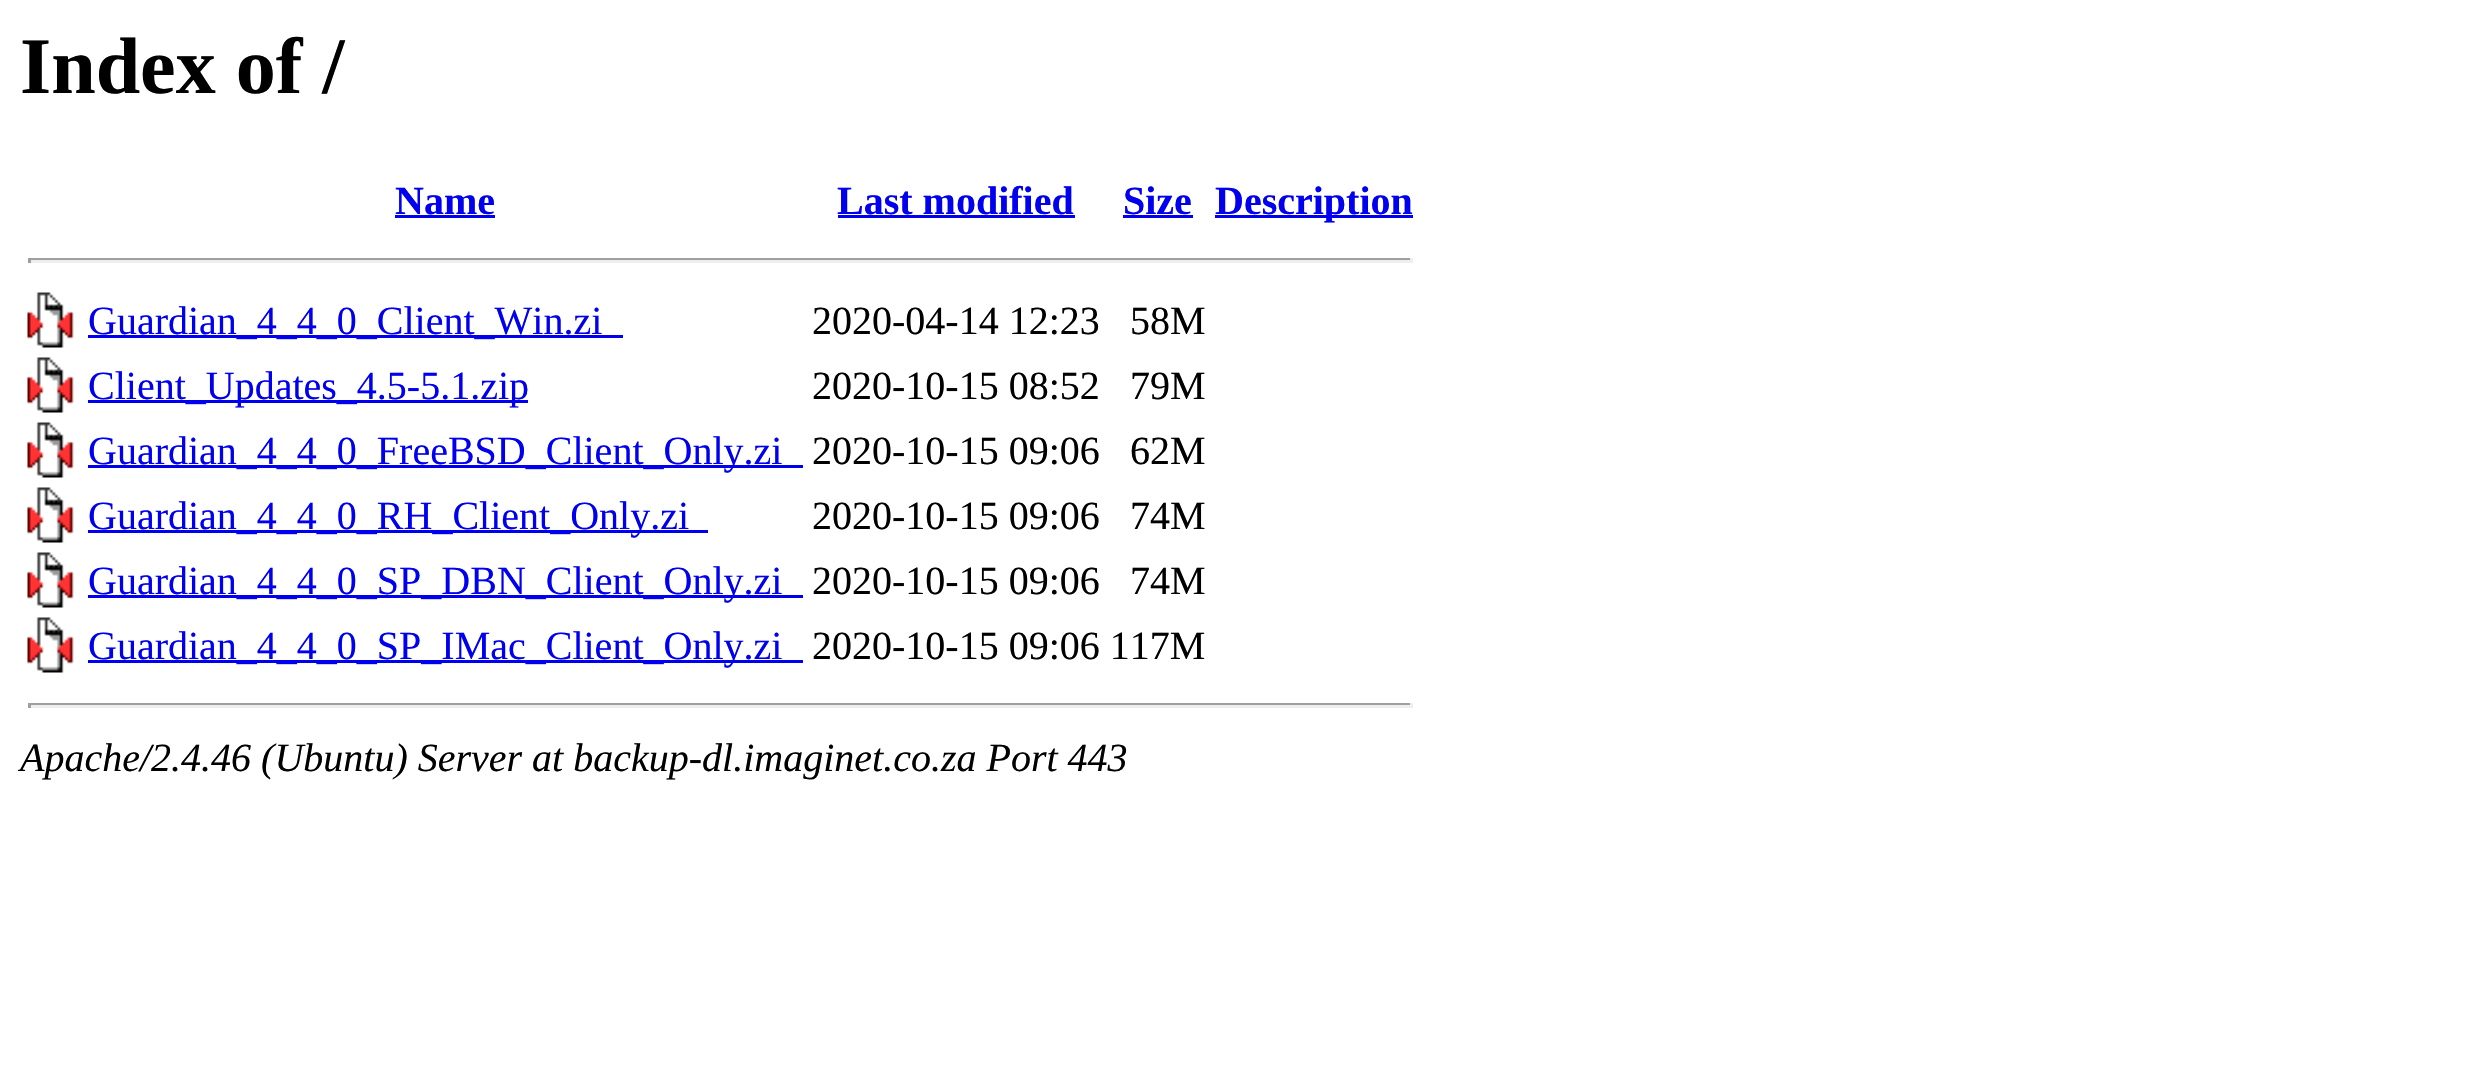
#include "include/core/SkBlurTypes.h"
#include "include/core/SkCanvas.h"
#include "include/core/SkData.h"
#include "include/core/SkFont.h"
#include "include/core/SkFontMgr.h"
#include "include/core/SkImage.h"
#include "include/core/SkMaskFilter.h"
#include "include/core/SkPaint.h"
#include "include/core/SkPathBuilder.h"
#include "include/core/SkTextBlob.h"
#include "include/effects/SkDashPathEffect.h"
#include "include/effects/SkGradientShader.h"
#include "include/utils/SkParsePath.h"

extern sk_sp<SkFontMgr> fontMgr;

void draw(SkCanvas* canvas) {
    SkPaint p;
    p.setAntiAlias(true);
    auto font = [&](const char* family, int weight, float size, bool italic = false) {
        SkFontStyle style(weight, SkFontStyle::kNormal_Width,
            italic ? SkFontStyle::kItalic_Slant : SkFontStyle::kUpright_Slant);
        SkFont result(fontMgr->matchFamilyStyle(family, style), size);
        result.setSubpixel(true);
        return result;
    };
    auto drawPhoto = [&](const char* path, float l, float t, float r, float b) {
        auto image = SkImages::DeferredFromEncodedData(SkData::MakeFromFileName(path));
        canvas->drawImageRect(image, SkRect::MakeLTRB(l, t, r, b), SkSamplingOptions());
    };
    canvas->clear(0xFFFFFFFF);
    auto font1 = font("Liberation Serif", 700, 80);
    p.setColor(0xFF000000);
    canvas->drawString("Index of /", 20, 93, font1, p);
    auto font2 = font("Liberation Serif", 700, 40);
    p.setColor(0xFF0000EE);
    canvas->drawString("Name", 395, 214, font2, p);
    canvas->drawRect(SkRect::MakeLTRB(395, 215, 495, 218), p);
    canvas->drawString("Last modified", 837, 214, font2, p);
    canvas->drawRect(SkRect::MakeLTRB(838, 215, 1075, 218), p);
    canvas->drawString("Size", 1123, 214, font2, p);
    canvas->drawRect(SkRect::MakeLTRB(1123, 215, 1193, 218), p);
    canvas->drawRect(SkRect::MakeLTRB(1215, 215, 1413, 218), p);
    canvas->drawString("Description", 1215, 214, font2, p);
    {
        const struct { float l, t, r, b; SkColor color; } items[] = {
            {28, 258, 1413, 260, 0xFF9F9F9F},
            {1410, 258, 1413, 263, 0xFFEEEEEE},
            {28, 260, 1413, 263, 0xFFEEEEEE},
            {28, 258, 31, 263, 0xFF9F9F9F},
        };
        for (auto [l, t, r, b, color] : items) {
            p.setColor(color);
            canvas->drawRect(SkRect::MakeLTRB(l, t, r, b), p);
        }
    }
    drawPhoto("media/1.png", 27, 292, 74, 348);
    p.setColor(0xFF0000EE);
    canvas->drawRect(SkRect::MakeLTRB(88, 335, 623, 338), p);
    auto font3 = font("Liberation Serif", 400, 40);
    canvas->drawString("Guardian_4_4_0_Client_Win.zi", 88, 334, font3, p);
    p.setColor(0xFF000000);
    canvas->drawString("2020-04-14 12:23", 812, 334, font3, p);
    canvas->drawString("58M", 1130, 334, font3, p);
    drawPhoto("media/2.png", 27, 357, 74, 413);
    p.setColor(0xFF0000EE);
    canvas->drawRect(SkRect::MakeLTRB(88, 400, 528, 403), p);
    canvas->drawString("Client_Updates_4.5-5.1.zip", 88, 399, font3, p);
    p.setColor(0xFF000000);
    canvas->drawString("2020-10-15 08:52", 812, 399, font3, p);
    canvas->drawString("79M", 1130, 399, font3, p);
    drawPhoto("media/2.png", 27, 422, 74, 478);
    p.setColor(0xFF0000EE);
    canvas->drawRect(SkRect::MakeLTRB(88, 465, 803, 468), p);
    canvas->drawString("Guardian_4_4_0_FreeBSD_Client_Only.zi", 88, 464, font3, p);
    p.setColor(0xFF000000);
    canvas->drawString("2020-10-15 09:06", 812, 464, font3, p);
    canvas->drawString("62M", 1130, 464, font3, p);
    drawPhoto("media/2.png", 27, 487, 74, 543);
    p.setColor(0xFF0000EE);
    canvas->drawRect(SkRect::MakeLTRB(88, 530, 708, 533), p);
    canvas->drawString("Guardian_4_4_0_RH_Client_Only.zi", 88, 529, font3, p);
    p.setColor(0xFF000000);
    canvas->drawString("2020-10-15 09:06", 812, 529, font3, p);
    canvas->drawString("74M", 1130, 529, font3, p);
    drawPhoto("media/3.png", 27, 552, 74, 608);
    p.setColor(0xFF0000EE);
    canvas->drawRect(SkRect::MakeLTRB(88, 595, 803, 598), p);
    canvas->drawString("Guardian_4_4_0_SP_DBN_Client_Only.zi", 88, 594, font3, p);
    p.setColor(0xFF000000);
    canvas->drawString("2020-10-15 09:06", 812, 594, font3, p);
    canvas->drawString("74M", 1130, 594, font3, p);
    drawPhoto("media/2.png", 27, 617, 74, 673);
    p.setColor(0xFF0000EE);
    canvas->drawRect(SkRect::MakeLTRB(88, 660, 803, 663), p);
    canvas->drawString("Guardian_4_4_0_SP_IMac_Client_Only.zi", 88, 659, font3, p);
    p.setColor(0xFF000000);
    canvas->drawString("2020-10-15 09:06 117M", 812, 659, font3, p);
    {
        const struct { float l, t, r, b; SkColor color; } items[] = {
            {28, 703, 1413, 705, 0xFF9F9F9F},
            {1410, 703, 1413, 708, 0xFFEEEEEE},
            {28, 705, 1413, 708, 0xFFEEEEEE},
            {28, 703, 31, 708, 0xFF9F9F9F},
        };
        for (auto [l, t, r, b, color] : items) {
            p.setColor(color);
            canvas->drawRect(SkRect::MakeLTRB(l, t, r, b), p);
        }
    }
    auto font4 = font("Liberation Serif", 400, 40, true);
    p.setColor(0xFF000000);
    canvas->drawString("Apache/2.4.46 (Ubuntu) Server at backup-dl.imaginet.co.za Port 443", 20, 771, font4, p);
}
